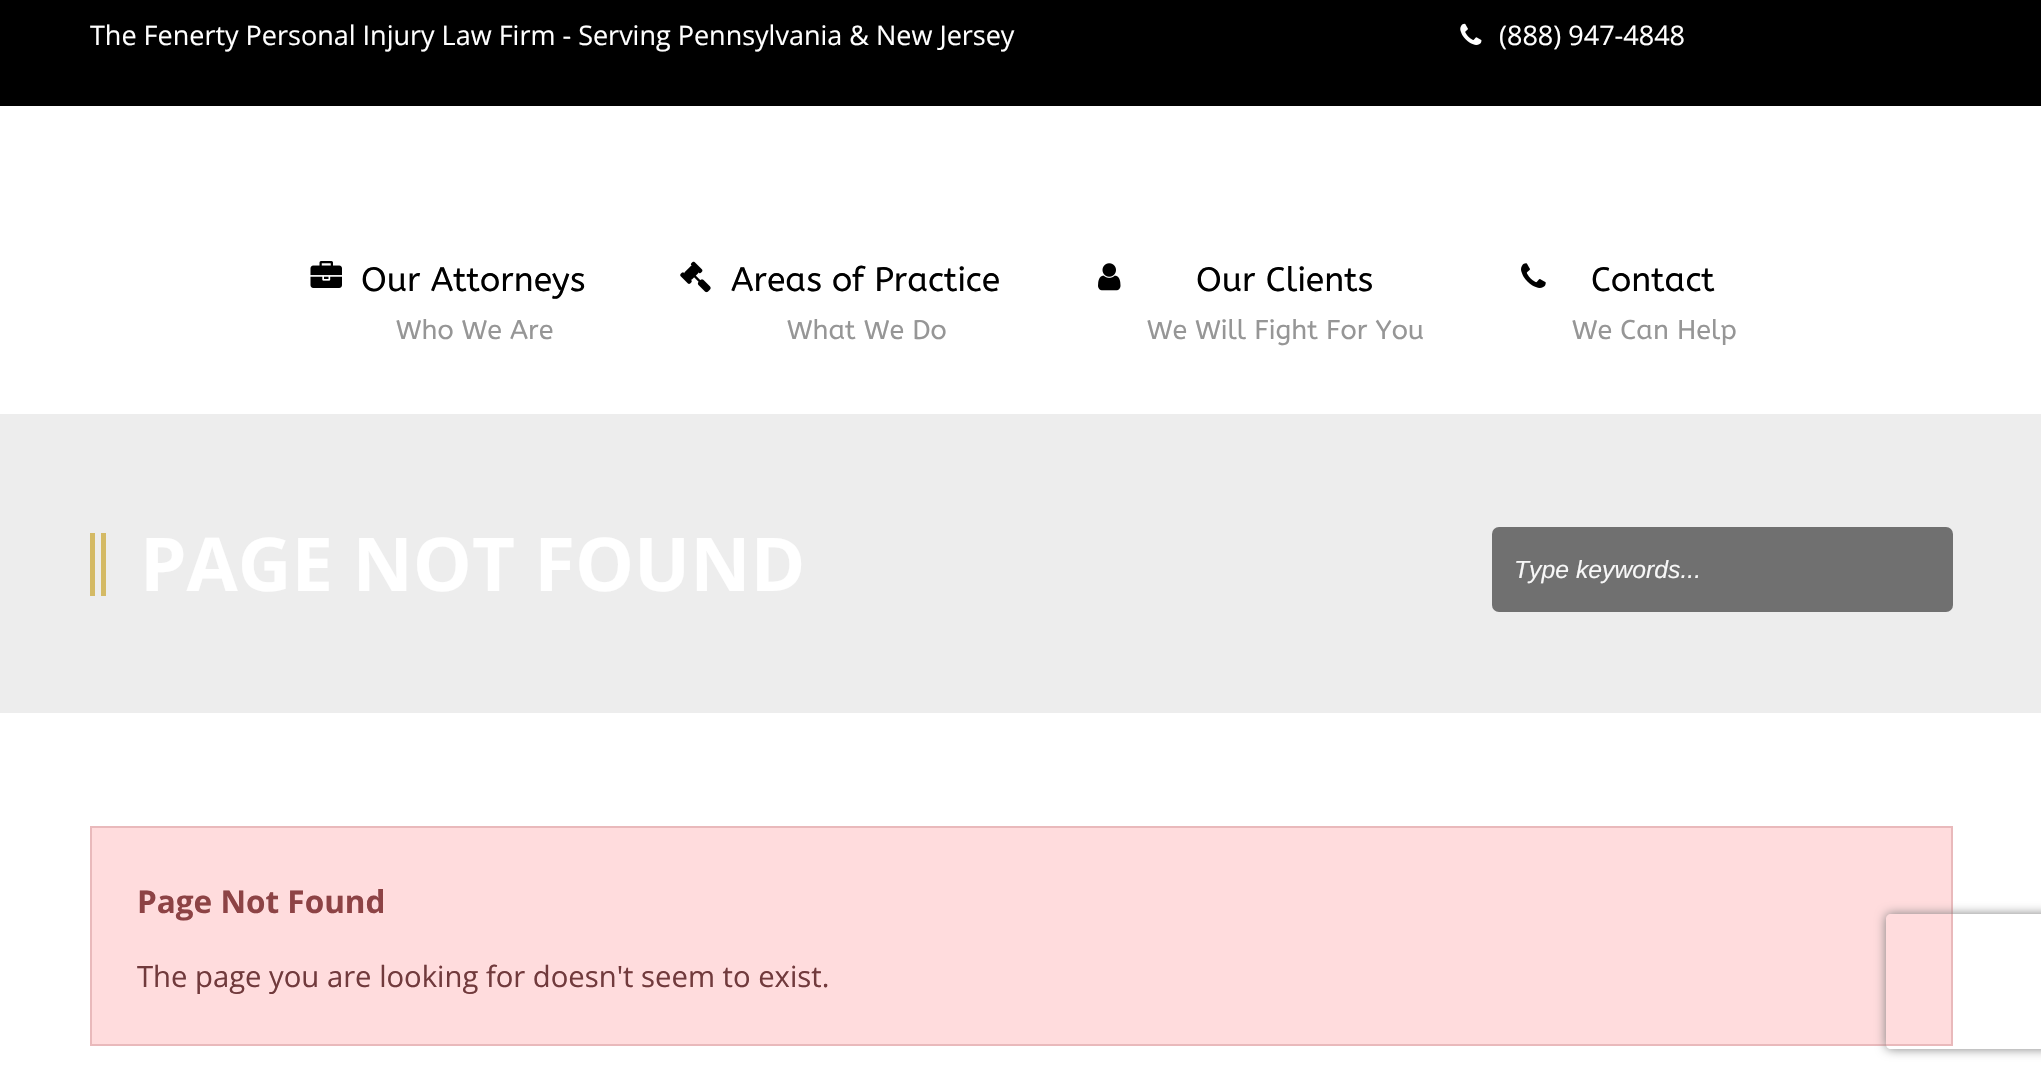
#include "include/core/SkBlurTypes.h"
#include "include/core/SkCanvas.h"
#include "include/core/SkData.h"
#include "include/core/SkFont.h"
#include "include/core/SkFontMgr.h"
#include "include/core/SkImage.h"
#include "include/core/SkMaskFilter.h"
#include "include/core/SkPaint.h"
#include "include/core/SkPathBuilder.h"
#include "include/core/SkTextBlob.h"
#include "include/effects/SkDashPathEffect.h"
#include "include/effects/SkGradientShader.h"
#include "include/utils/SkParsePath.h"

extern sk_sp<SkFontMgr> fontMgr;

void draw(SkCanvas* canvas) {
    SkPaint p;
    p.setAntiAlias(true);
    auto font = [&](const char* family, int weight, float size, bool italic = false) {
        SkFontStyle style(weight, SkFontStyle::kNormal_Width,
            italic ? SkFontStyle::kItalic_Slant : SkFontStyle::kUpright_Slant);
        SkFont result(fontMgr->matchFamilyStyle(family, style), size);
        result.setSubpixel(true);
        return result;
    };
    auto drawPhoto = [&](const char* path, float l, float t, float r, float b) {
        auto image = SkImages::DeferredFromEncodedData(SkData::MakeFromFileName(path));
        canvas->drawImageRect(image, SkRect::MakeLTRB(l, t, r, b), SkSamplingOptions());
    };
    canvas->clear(0xFFEDEDED);
    p.setColor(0xFF000000);
    canvas->drawRect(SkRect::MakeLTRB(0, 0, 2041, 106), p);
    auto font1 = font("Open Sans", 400, 27);
    p.setColor(0xFFFFFFFF);
    canvas->drawString("The Fenerty Personal Injury Law Firm - Serving Pennsylvania & New Jersey", 90, 45, font1, p);
    drawPhoto("media/1.png", 1460, 23, 1482, 45);
    canvas->drawString("(888) 947-4848", 1499, 45, font1, p);
    canvas->drawRect(SkRect::MakeLTRB(0, 106, 2041, 414), p);
    drawPhoto("media/2.png", 310, 261, 342, 288);
    auto font2 = font("ABeeZee", 400, 33.75f);
    p.setColor(0xFF000000);
    canvas->drawString("Our Attorneys", 361, 291, font2, p);
    auto font3 = font("ABeeZee", 400, 27);
    p.setColor(0xFF969696);
    canvas->drawString("Who We Are", 396, 339, font3, p);
    drawPhoto("media/3.png", 680, 261, 711, 293);
    p.setColor(0xFF000000);
    canvas->drawString("Areas of Practice", 731, 291, font2, p);
    p.setColor(0xFF969696);
    canvas->drawString("What We Do", 787, 339, font3, p);
    drawPhoto("media/4.png", 1098, 263, 1121, 291);
    p.setColor(0xFF000000);
    canvas->drawString("Our Clients", 1196, 291, font2, p);
    p.setColor(0xFF969696);
    canvas->drawString("We Will Fight For You", 1147, 339, font3, p);
    drawPhoto("media/5.png", 1521, 263, 1546, 288);
    p.setColor(0xFF000000);
    canvas->drawString("Contact", 1591, 291, font2, p);
    p.setColor(0xFF969696);
    canvas->drawString("We Can Help", 1572, 339, font3, p);
    p.setColor(0xFFD4BA65);
    canvas->drawRect(SkRect::MakeLTRB(90, 533, 95, 596), p);
    canvas->drawRect(SkRect::MakeLTRB(101, 533, 106, 596), p);
    auto font4 = font("Open Sans", 700, 74.25f);
    p.setColor(0xFFFFFFFF);
    canvas->drawString("PAGE NOT FOUND", 140, 591, font4, p);
    p.setColor(0xFF707070);
    canvas->drawRoundRect(SkRect::MakeLTRB(1492, 527, 1953, 612), 7, 7, p);
    auto font5 = font("Liberation Sans", 400, 24.75f, true);
    p.setColor(0xFFF7F7F7);
    canvas->drawString("Type keywords...", 1514, 578, font5, p);
    p.setColor(0xFFFFFFFF);
    canvas->drawRect(SkRect::MakeLTRB(0, 713, 2041, 1079), p);
    p.setColor(0xFFFFDCDD);
    canvas->drawRect(SkRect::MakeLTRB(91, 827, 1952, 1045), p);
    p.setStyle(SkPaint::kStroke_Style);
    p.setStrokeWidth(2);
    p.setColor(0xFFE9B9BB);
    canvas->drawRect(SkRect::MakeLTRB(91, 827, 1952, 1045), p);
    auto font6 = font("Open Sans", 700, 31.5f);
    p.setStyle(SkPaint::kFill_Style);
    p.setColor(0xFF8D4345);
    canvas->drawString("Page Not Found", 137, 913, font6, p);
    auto font7 = font("Open Sans", 400, 29.25f);
    p.setColor(0xFF713A3C);
    canvas->drawString("The page you are looking for doesn't seem to exist.", 137, 987, font7, p);
    canvas->save();
    canvas->clipPath(SkPathBuilder(SkPathFillType::kEvenOdd).moveTo(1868, 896).lineTo(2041, 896).lineTo(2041, 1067).lineTo(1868, 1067).close().moveTo(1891, 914).lineTo(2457, 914).cubicTo(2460, 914, 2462, 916, 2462, 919).lineTo(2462, 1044).cubicTo(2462, 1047, 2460, 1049, 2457, 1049).lineTo(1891, 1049).cubicTo(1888, 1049, 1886, 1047, 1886, 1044).lineTo(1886, 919).cubicTo(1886, 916, 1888, 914, 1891, 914).close().detach(), true);
    p.setColor(0xFF808080);
    p.setMaskFilter(SkMaskFilter::MakeBlur(kNormal_SkBlurStyle, 5.5f));
    canvas->drawRoundRect(SkRect::MakeLTRB(1886, 914, 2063, 1049), 5, 5, p);
    p.setMaskFilter(nullptr);
    canvas->restore();
}
